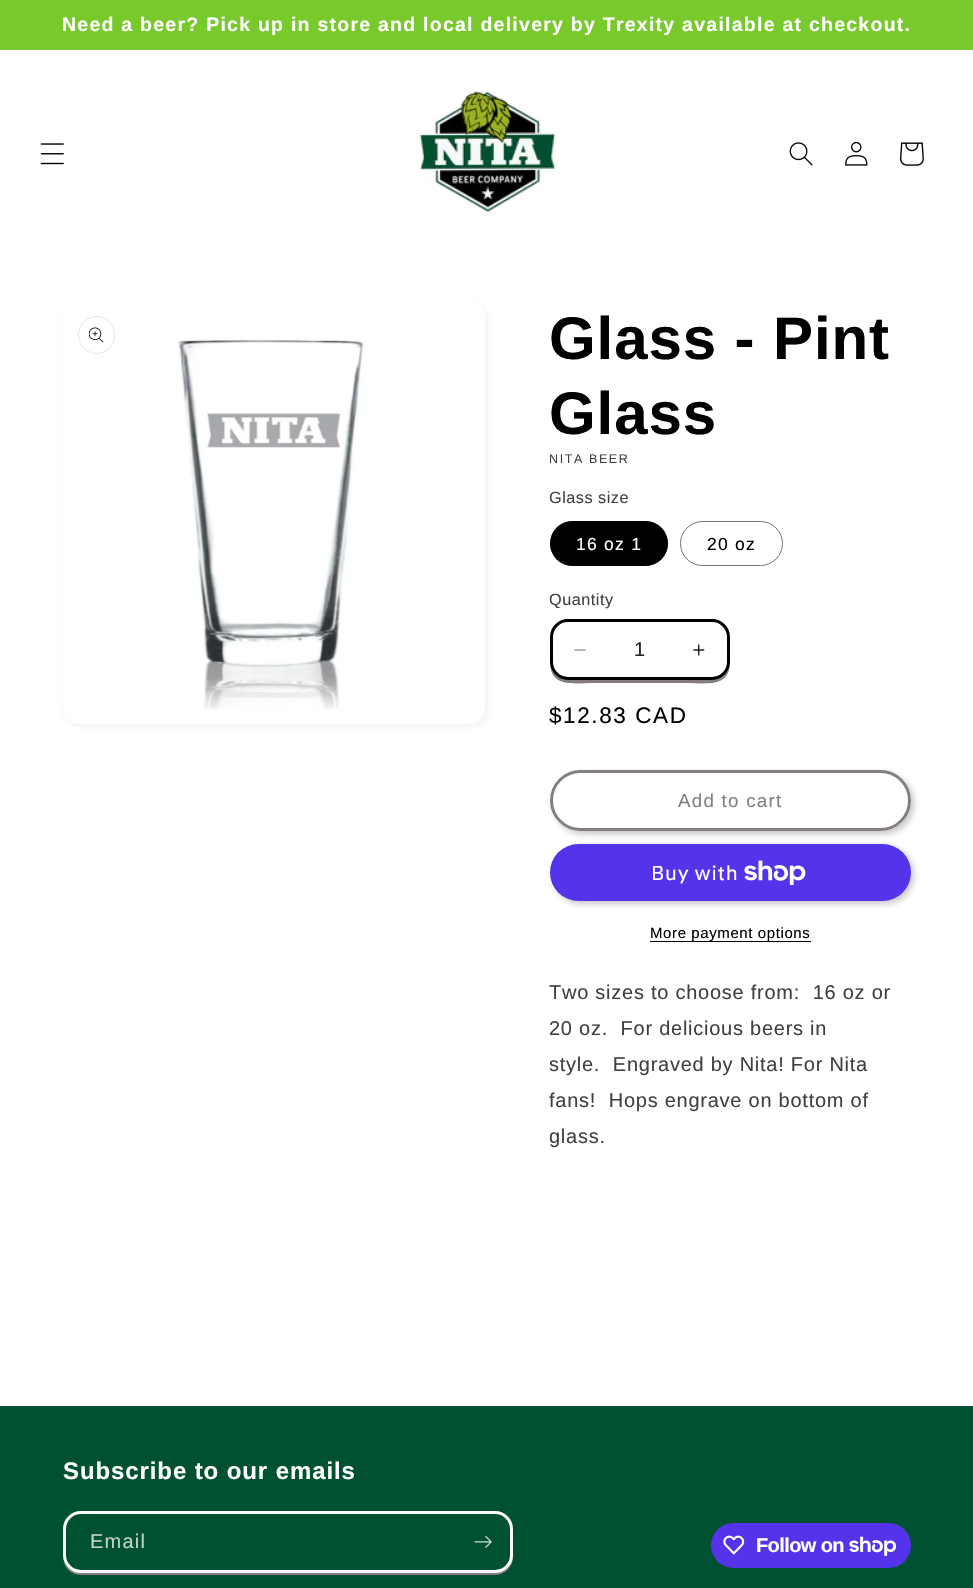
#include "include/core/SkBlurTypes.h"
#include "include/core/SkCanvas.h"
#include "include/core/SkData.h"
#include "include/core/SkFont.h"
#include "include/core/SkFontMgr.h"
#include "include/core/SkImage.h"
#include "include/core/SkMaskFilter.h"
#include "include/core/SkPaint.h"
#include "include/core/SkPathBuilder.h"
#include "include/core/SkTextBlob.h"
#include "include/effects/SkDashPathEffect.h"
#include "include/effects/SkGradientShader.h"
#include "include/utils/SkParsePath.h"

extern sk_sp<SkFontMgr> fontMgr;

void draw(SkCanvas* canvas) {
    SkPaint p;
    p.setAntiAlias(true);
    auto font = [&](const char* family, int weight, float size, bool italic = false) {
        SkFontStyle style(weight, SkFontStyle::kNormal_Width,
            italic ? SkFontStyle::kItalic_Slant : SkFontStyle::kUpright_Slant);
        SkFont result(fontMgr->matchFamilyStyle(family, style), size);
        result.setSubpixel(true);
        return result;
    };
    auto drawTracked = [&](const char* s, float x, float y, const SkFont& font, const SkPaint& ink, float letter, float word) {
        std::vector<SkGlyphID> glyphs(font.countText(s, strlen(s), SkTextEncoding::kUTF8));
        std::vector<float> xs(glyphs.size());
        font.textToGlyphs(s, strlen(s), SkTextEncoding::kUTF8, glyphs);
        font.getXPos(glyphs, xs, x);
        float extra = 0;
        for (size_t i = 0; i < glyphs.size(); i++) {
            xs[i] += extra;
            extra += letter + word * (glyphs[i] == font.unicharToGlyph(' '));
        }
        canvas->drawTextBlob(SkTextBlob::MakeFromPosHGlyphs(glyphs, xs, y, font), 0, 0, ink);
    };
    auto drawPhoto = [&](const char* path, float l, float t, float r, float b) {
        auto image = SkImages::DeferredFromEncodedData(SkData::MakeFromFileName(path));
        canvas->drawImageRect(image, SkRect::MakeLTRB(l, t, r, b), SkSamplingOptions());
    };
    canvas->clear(0xFFFFFFFF);
    p.setColor(0xFF78CA2C);
    canvas->drawRect(SkRect::MakeLTRB(0, 0, 973, 49), p);
    p.setColor(0xFF83CE3D);
    canvas->drawRect(SkRect::MakeLTRB(0, 49, 973, 50), p);
    auto font1 = font("Arimo", 700, 19.5f);
    p.setColor(0xFFFFFFFF);
    drawTracked("Need a beer? Pick up in store and local delivery by Trexity available at checkout.", 62, 31, font1, p, 1.25f, 0);
    drawPhoto("media/1.png", 40, 143, 64, 165);
    drawPhoto("media/2.png", 418, 90, 556, 213);
    drawPhoto("media/3.png", 789, 142, 813, 166);
    drawPhoto("media/4.png", 845, 141, 868, 166);
    drawPhoto("media/5.png", 900, 142, 924, 166);
    p.setColor(0x1A847E81);
    p.setMaskFilter(SkMaskFilter::MakeBlur(kNormal_SkBlurStyle, 3));
    canvas->drawRoundRect(SkRect::MakeLTRB(65, 304, 488, 726), 15, 15, p);
    p.setMaskFilter(nullptr);
    p.setColor(0xFFFFFFFF);
    canvas->drawRoundRect(SkRect::MakeLTRB(63, 301, 485, 724), 15, 15, p);
    p.setStyle(SkPaint::kStroke_Style);
    p.setStrokeWidth(1);
    p.setColor(0xFFE6E6E6);
    canvas->drawRoundRect(SkRect::MakeLTRB(78.5f, 316.5f, 114.5f, 353.5f), 18, 18, p);
    drawPhoto("media/6.png", 89, 327, 104, 343);
    drawPhoto("media/7.png", 177, 339, 365, 710);
    auto font2 = font("Arimo", 700, 60);
    p.setStyle(SkPaint::kFill_Style);
    p.setColor(0xFF000000);
    drawTracked("Glass - Pint", 549, 359, font2, p, 0.9f, 0);
    drawTracked("Glass", 549, 434, font2, p, 0.9f, 0);
    auto font3 = font("Arimo", 400, 12.5f);
    p.setColor(0xFF404040);
    drawTracked("NITA BEER", 549, 463, font3, p, 1.6f, 0);
    auto font4 = font("Arimo", 400, 16.25f);
    drawTracked("Glass size", 549, 503, font4, p, 0.5f, 0);
    p.setColor(0xFF000000);
    canvas->drawRoundRect(SkRect::MakeLTRB(550, 521, 668, 566), 22.5f, 22.5f, p);
    p.setStyle(SkPaint::kStroke_Style);
    p.setColor(0x8C000000);
    canvas->drawRoundRect(SkRect::MakeLTRB(550.5f, 521.5f, 667.5f, 565.5f), 22, 22, p);
    auto font5 = font("Arimo", 400, 17.5f);
    p.setStyle(SkPaint::kFill_Style);
    p.setColor(0xFFFFFFFF);
    drawTracked("16 oz 1", 576, 550, font5, p, 1.25f, 0);
    p.setStyle(SkPaint::kStroke_Style);
    p.setColor(0xFF737373);
    canvas->drawRoundRect(SkRect::MakeLTRB(680.5f, 521.5f, 782.5f, 565.5f), 22, 22, p);
    p.setStyle(SkPaint::kFill_Style);
    p.setColor(0xFF000000);
    drawTracked("20 oz", 707, 550, font5, p, 1.25f, 0);
    p.setColor(0xFF404040);
    drawTracked("Quantity", 549, 605, font4, p, 0.5f, 0);
    p.setColor(0xFF847E81);
    canvas->drawPath(SkPathBuilder().moveTo(550, 662).cubicTo(550, 688, 574, 683, 592, 683).lineTo(688, 683).cubicTo(706, 683, 730, 688, 730, 662).cubicTo(730, 672, 722, 680, 712, 680).lineTo(568, 680).cubicTo(558, 680, 550, 672, 550, 662).close().detach(), p);
    p.setColor(0xFFFFFFFF);
    canvas->drawRoundRect(SkRect::MakeLTRB(550, 619, 730, 680), 18, 18, p);
    drawPhoto("media/8.png", 574, 649, 586, 651);
    drawPhoto("media/9.png", 693, 644, 705, 656);
    p.setStyle(SkPaint::kStroke_Style);
    p.setStrokeWidth(3);
    p.setColor(0xFF000000);
    canvas->drawRoundRect(SkRect::MakeLTRB(551.5f, 620.5f, 728.5f, 678.5f), 16.5f, 16.5f, p);
    auto font6 = font("Arimo", 400, 20);
    p.setStyle(SkPaint::kFill_Style);
    p.setColor(0xFF262626);
    canvas->drawString("1", 634, 656, font6, p);
    auto font7 = font("Arimo", 400, 22.5f);
    p.setColor(0xFF000000);
    drawTracked("$12.83 CAD", 549, 723, font7, p, 1.6f, 0);
    p.setColor(0x73847E81);
    p.setMaskFilter(SkMaskFilter::MakeBlur(kNormal_SkBlurStyle, 3));
    canvas->drawRoundRect(SkRect::MakeLTRB(553, 773, 914, 834), 30.5f, 30.5f, p);
    p.setMaskFilter(nullptr);
    p.setColor(0xFFFFFFFF);
    canvas->drawRoundRect(SkRect::MakeLTRB(550, 770, 911, 831), 30.5f, 30.5f, p);
    p.setStyle(SkPaint::kStroke_Style);
    canvas->drawRoundRect(SkRect::MakeLTRB(551.5f, 771.5f, 909.5f, 829.5f), 29, 29, p);
    p.setColor(0xFF847E81);
    canvas->drawRoundRect(SkRect::MakeLTRB(551.5f, 771.5f, 909.5f, 829.5f), 29, 29, p);
    auto font8 = font("Arimo", 400, 18.75f);
    p.setStyle(SkPaint::kFill_Style);
    drawTracked("Add to cart", 678, 807, font8, p, 1.25f, 0);
    p.setColor(0x73847E81);
    p.setMaskFilter(SkMaskFilter::MakeBlur(kNormal_SkBlurStyle, 3));
    canvas->drawRoundRect(SkRect::MakeLTRB(553, 846, 914, 904), 29, 29, p);
    p.setMaskFilter(nullptr);
    p.setColor(0xFF5433EB);
    canvas->drawRoundRect(SkRect::MakeLTRB(550, 844, 911, 901), 28.5f, 28.5f, p);
    auto font9 = font("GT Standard", 400, 20);
    p.setColor(0xFFFFFFFF);
    drawTracked("Buy with", 651, 880, font9, p, 0.75f, 0);
    drawPhoto("media/10.png", 744, 860, 806, 885);
    p.setColor(0xFF000000);
    canvas->drawRect(SkRect::MakeLTRB(650, 941, 811, 942), p);
    auto font10 = font("Arimo", 400, 15);
    drawTracked("More payment options", 650, 938, font10, p, 0.6f, 0);
    p.setColor(0xFF404040);
    {
        const struct { const char* s; float x, y; } items[] = {
            {"Two sizes to choose from:  16 oz or", 549, 999},
            {"20 oz.  For delicious beers in", 549, 1035},
            {"style.  Engraved by Nita! For Nita", 549, 1071},
            {"fans!  Hops engrave on bottom of", 549, 1107},
            {"glass.", 549, 1143},
        };
        for (auto [s, x, y] : items) {
            drawTracked(s, x, y, font6, p, 0.75f, 0);
        }
    }
    p.setColor(0xFF005131);
    canvas->drawRect(SkRect::MakeLTRB(0, 1406, 973, 1588), p);
    auto font11 = font("Arimo", 700, 24);
    p.setColor(0xFFFFFFFF);
    drawTracked("Subscribe to our emails", 63, 1479, font11, p, 0.9f, 0);
    p.setColor(0xFF847E81);
    canvas->drawPath(SkPathBuilder().moveTo(63, 1560).cubicTo(65, 1569, 72, 1575, 81, 1575).lineTo(495, 1575).cubicTo(505, 1575, 513, 1567, 513, 1557).lineTo(513, 1532).lineTo(512, 1528).lineTo(512, 1555).cubicTo(512, 1565, 505, 1572, 495, 1572).lineTo(80, 1572).cubicTo(72, 1572, 65, 1567, 63, 1560).close().detach(), p);
    p.setStyle(SkPaint::kStroke_Style);
    p.setColor(0xFFFFFFFF);
    canvas->drawRoundRect(SkRect::MakeLTRB(64.5f, 1512.5f, 511.5f, 1571.5f), 16.5f, 16.5f, p);
    p.setStyle(SkPaint::kFill_Style);
    p.setColor(0xFFBFD4CC);
    drawTracked("Email", 90, 1548, font6, p, 1.25f, 0);
    drawPhoto("media/11.png", 474, 1535, 492, 1548);
    p.setColor(0xFF5433EB);
    canvas->drawRoundRect(SkRect::MakeLTRB(711, 1523, 911, 1568), 22.5f, 22.5f, p);
    drawPhoto("media/12.png", 723, 1535, 745, 1555);
    auto font12 = font("Liberation Sans", 700, 20);
    p.setColor(0xFFFFFFFF);
    drawTracked("Follow on", 756, 1552, font12, p, -0.6f, 0);
    drawPhoto("media/13.png", 849, 1536, 896, 1556);
}
